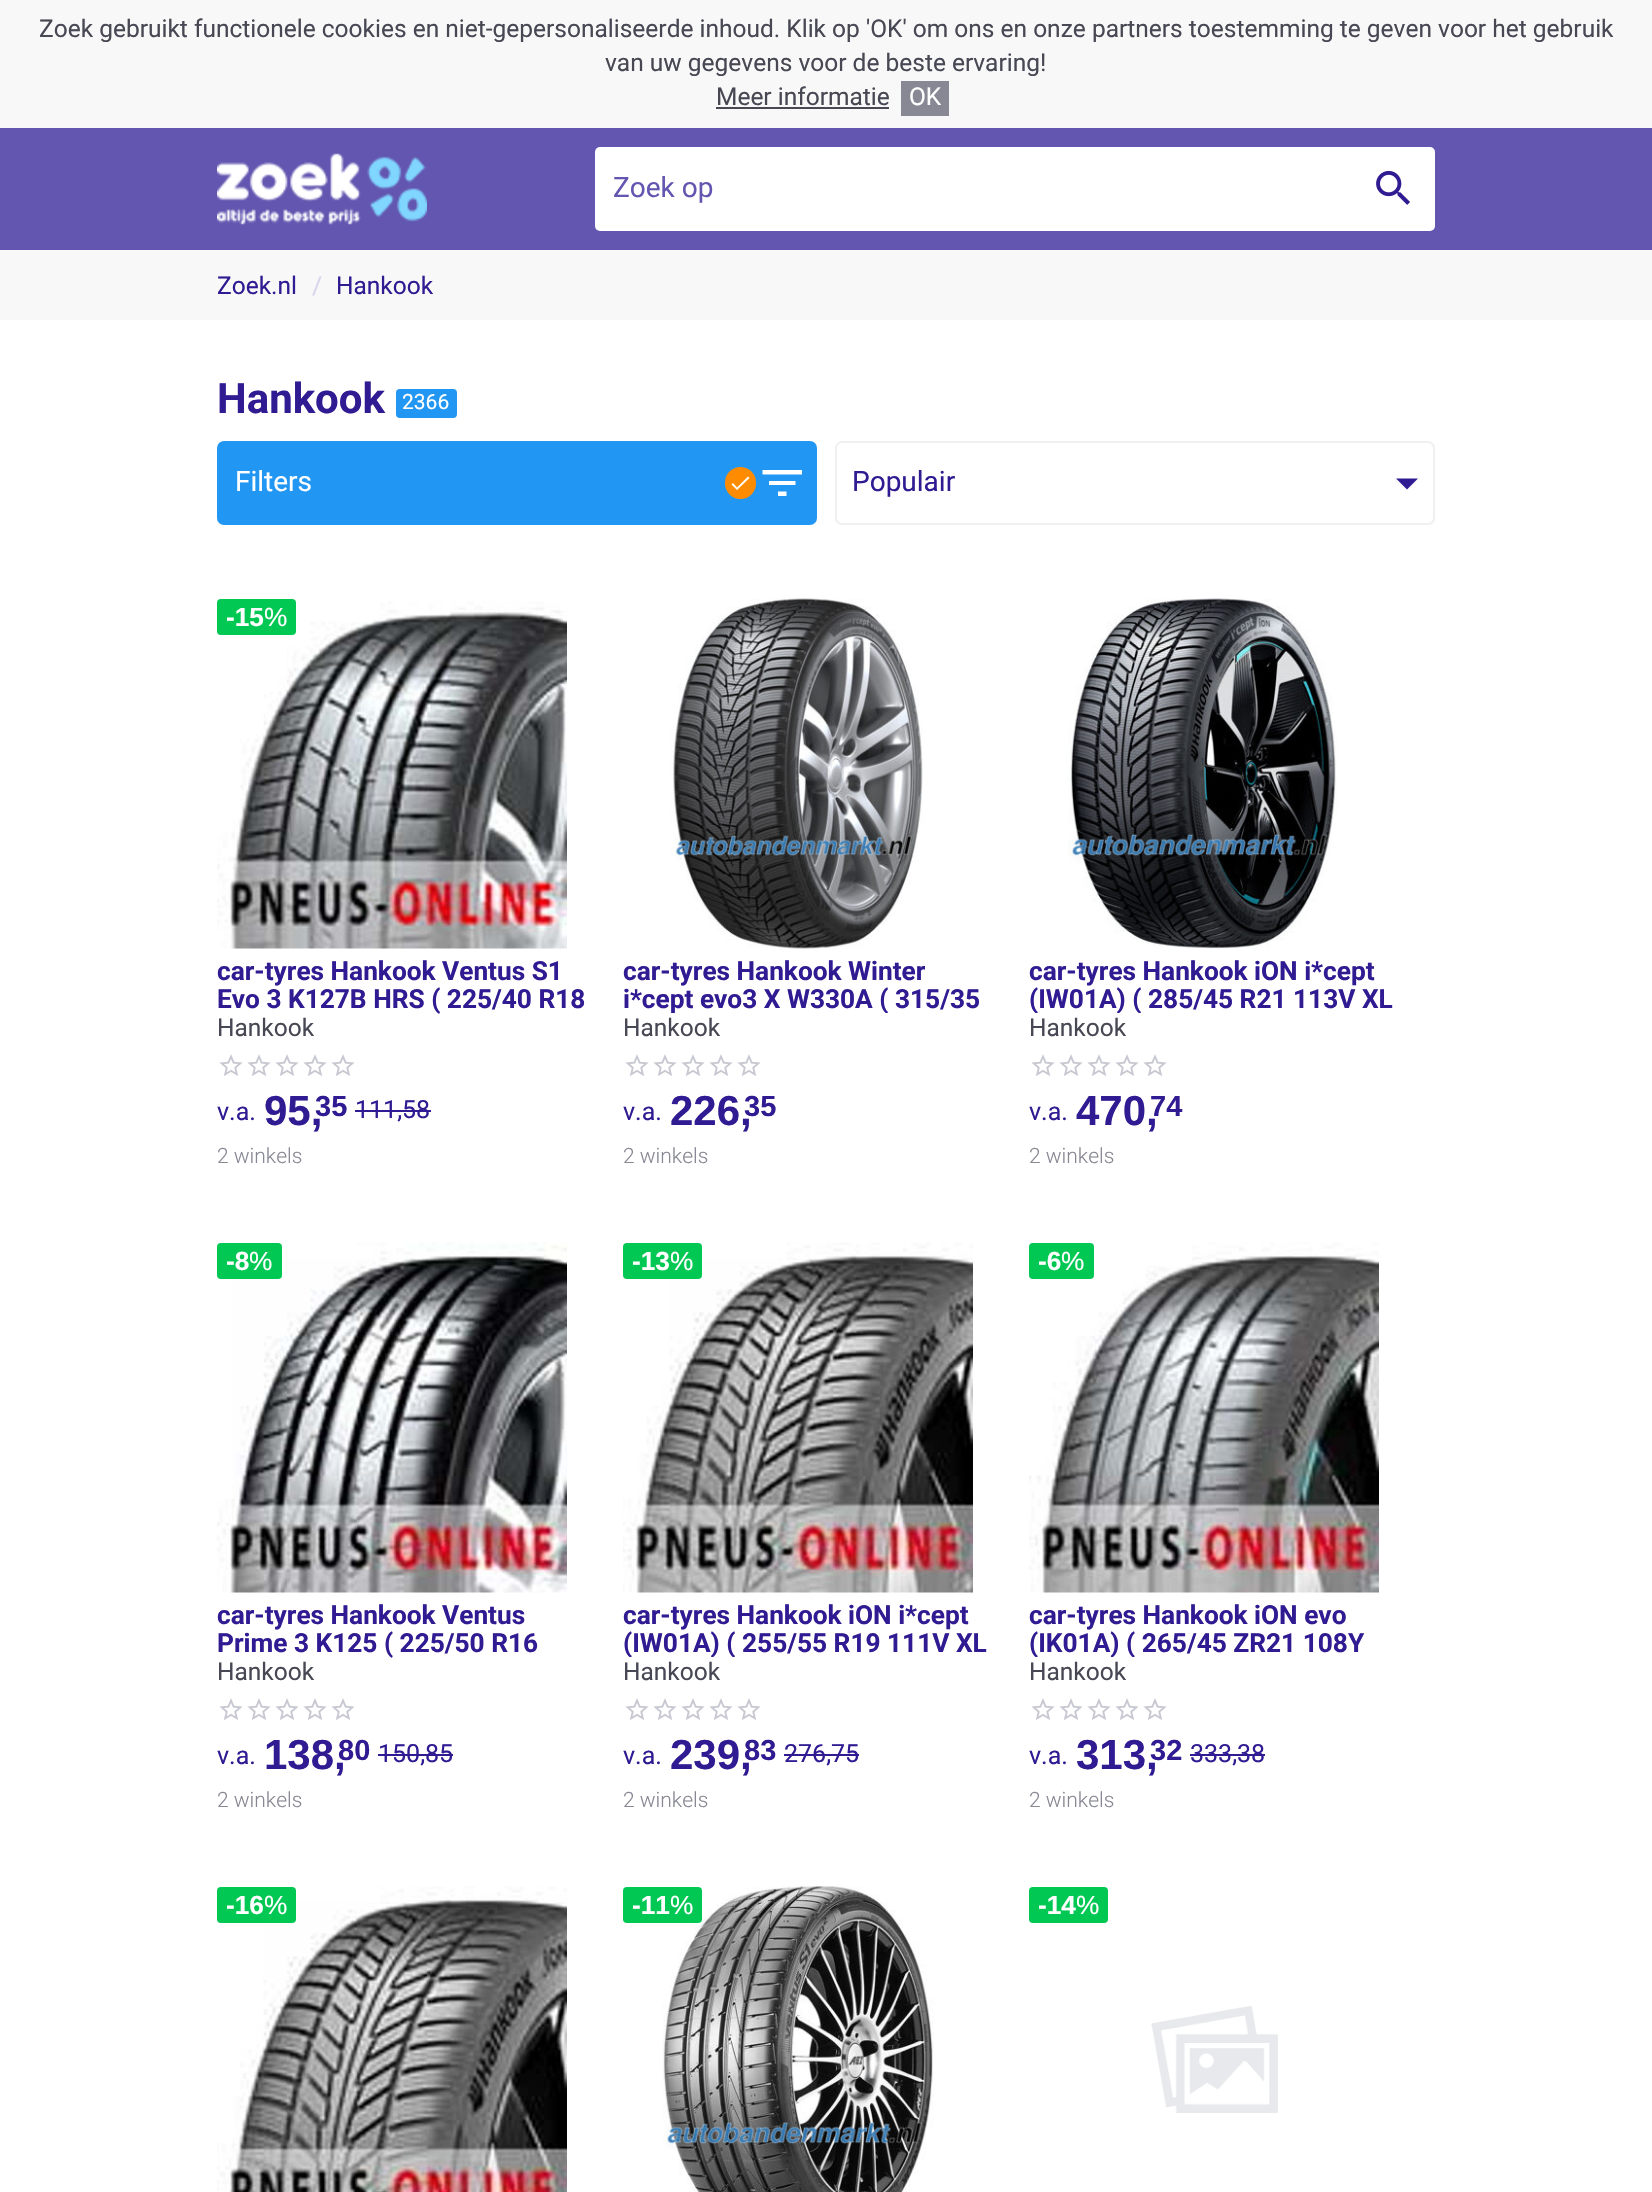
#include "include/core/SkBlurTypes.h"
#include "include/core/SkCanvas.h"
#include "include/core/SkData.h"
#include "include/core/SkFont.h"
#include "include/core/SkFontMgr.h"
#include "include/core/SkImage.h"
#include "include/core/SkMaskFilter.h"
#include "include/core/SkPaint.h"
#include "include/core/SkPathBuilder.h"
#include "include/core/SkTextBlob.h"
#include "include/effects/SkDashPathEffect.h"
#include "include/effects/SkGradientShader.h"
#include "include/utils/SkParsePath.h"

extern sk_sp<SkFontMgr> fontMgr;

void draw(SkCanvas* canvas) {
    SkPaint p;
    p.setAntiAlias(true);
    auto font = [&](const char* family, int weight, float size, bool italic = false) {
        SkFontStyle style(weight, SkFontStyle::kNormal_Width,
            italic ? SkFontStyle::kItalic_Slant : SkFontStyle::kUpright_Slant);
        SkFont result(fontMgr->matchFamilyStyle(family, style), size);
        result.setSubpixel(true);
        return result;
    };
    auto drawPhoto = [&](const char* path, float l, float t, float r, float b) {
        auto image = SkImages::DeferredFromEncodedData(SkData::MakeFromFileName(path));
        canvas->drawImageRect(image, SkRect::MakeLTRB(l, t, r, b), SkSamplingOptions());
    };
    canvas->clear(0xFFFFFFFF);
    p.setColor(0xFF6356B0);
    canvas->drawRect(SkRect::MakeLTRB(0, 128, 1652, 250), p);
    p.setColor(0xFFF8F8F8);
    canvas->drawRect(SkRect::MakeLTRB(0, 0, 1652, 128), p);
    auto font1 = font("Roboto", 400, 24.5f);
    p.setColor(0xFF484854);
    {
        const struct { const char* s; float x, y; } items[] = {
            {"Zoek gebruikt functionele cookies en niet-gepersonaliseerde inhoud. Klik op 'OK' om ons en onze partners toestemming te geven voor het gebruik", 39, 37},
            {"van uw gegevens voor de beste ervaring!", 605, 71},
            {"Meer informatie", 716, 105},
        };
        for (auto [s, x, y] : items) {
            canvas->drawString(s, x, y, font1, p);
        }
    }
    canvas->drawRect(SkRect::MakeLTRB(716, 107, 889, 109), p);
    p.setColor(0xFF888894);
    canvas->drawRect(SkRect::MakeLTRB(901, 81, 949, 116), p);
    p.setColor(0xFFFFFFFF);
    canvas->drawString("OK", 909, 105, font1, p);
    drawPhoto("media/1.png", 217, 153, 427, 225);
    canvas->drawRoundRect(SkRect::MakeLTRB(595, 147, 1435, 231), 5, 5, p);
    auto font2 = font("Roboto", 400, 28);
    p.setColor(0xFF6356B0);
    canvas->drawString("Zoek op", 613, 197, font2, p);
    drawPhoto("media/2.png", 1376, 170, 1410, 205);
    p.setColor(0xFFF8F8F8);
    canvas->drawRect(SkRect::MakeLTRB(0, 250, 1652, 320), p);
    p.setColor(0xFF311B92);
    canvas->drawString("Zoek.nl", 217, 294, font1, p);
    p.setColor(0xFFD7D4EB);
    canvas->drawString("/", 312, 294, font1, p);
    p.setColor(0xFF311B92);
    canvas->drawString("Hankook", 336, 294, font1, p);
    auto font3 = font("Roboto", 700, 42);
    canvas->drawString("Hankook", 217, 413, font3, p);
    p.setColor(0xFF2196F3);
    canvas->drawRoundRect(SkRect::MakeLTRB(396, 389, 457, 418), 4, 4, p);
    auto font4 = font("Roboto", 400, 21);
    p.setColor(0xFFFFFFFF);
    canvas->drawString("2366", 402, 409, font4, p);
    p.setColor(0xFF2196F3);
    canvas->drawRoundRect(SkRect::MakeLTRB(217, 441, 817, 525), 7, 7, p);
    p.setColor(0xFFFFFFFF);
    canvas->drawString("Filters", 235, 491, font2, p);
    p.setColor(0xFFFF8C00);
    canvas->drawRoundRect(SkRect::MakeLTRB(725, 467, 756, 499), 15.5f, 15.5f, p);
    p.setColor(0xFFFFFFFF);
    canvas->drawPath(SkPathBuilder().moveTo(737, 487.5f).lineTo(748, 476.5f).lineTo(749.5f, 478).lineTo(737, 490).lineTo(731.5f, 484.5f).lineTo(733, 483).close().detach(), p);
    canvas->drawPath(SkPathBuilder().moveTo(769, 485).lineTo(769, 481).lineTo(795.5f, 481).lineTo(795.5f, 485).close().moveTo(762.5f, 470).lineTo(802, 470).lineTo(802, 474.5f).lineTo(762.5f, 474.5f).close().moveTo(778, 496).lineTo(778, 491.5f).lineTo(786.5f, 491.5f).lineTo(786.5f, 496).close().detach(), p);
    p.setStyle(SkPaint::kStroke_Style);
    p.setStrokeWidth(2);
    p.setColor(0xFFF0F0F0);
    canvas->drawRoundRect(SkRect::MakeLTRB(836, 442, 1434, 524), 6, 6, p);
    p.setStyle(SkPaint::kFill_Style);
    p.setColor(0xFF311B92);
    canvas->drawString("Populair", 852, 491, font2, p);
    canvas->drawPath(SkPathBuilder().moveTo(1396, 478.5f).lineTo(1418, 478.5f).lineTo(1407, 489.5f).close().detach(), p);
    drawPhoto("media/3.png", 217, 601, 567, 949);
    p.setColor(0xFF00C853);
    canvas->drawRoundRect(SkRect::MakeLTRB(217, 599, 296, 635), 4, 4, p);
    auto font5 = font("Liberation Sans", 700, 26.25f);
    p.setColor(0xFFFFFFFF);
    canvas->drawString("-15", 226, 626, font5, p);
    auto font6 = font("Liberation Sans", 400, 26.25f);
    canvas->drawString("%", 264, 626, font6, p);
    auto font7 = font("Roboto", 700, 26.25f);
    p.setColor(0xFF311B92);
    canvas->drawString("car-tyres Hankook Ventus S1", 217, 980, font7, p);
    canvas->drawString("Evo 3 K127B HRS ( 225/40 R18", 217, 1008, font7, p);
    p.setColor(0xFF484854);
    canvas->drawString("Hankook", 217, 1036, font1, p);
    drawPhoto("media/4.png", 219, 1054, 355, 1076);
    auto font8 = font("Roboto", 400, 25);
    p.setColor(0xFF311B92);
    canvas->drawString("v.a.", 217, 1120, font8, p);
    auto font9 = font("Liberation Sans", 700, 42);
    canvas->drawString("95,", 264, 1125, font9, p);
    auto font10 = font("Liberation Sans", 700, 29);
    canvas->drawString("35", 315, 1116, font10, p);
    canvas->drawString("111,58", 355, 1118, font8, p);
    canvas->drawRect(SkRect::MakeLTRB(355, 1110, 431, 1112), p);
    auto font11 = font("Roboto", 300, 21);
    p.setColor(0xFF888894);
    canvas->drawString("2 winkels", 217, 1163, font11, p);
    drawPhoto("media/5.png", 670, 598, 923, 949);
    p.setColor(0xFF311B92);
    canvas->drawString("car-tyres Hankook Winter", 623, 980, font7, p);
    canvas->save();
    canvas->clipRect(SkRect::MakeLTRB(623, 957, 994, 1013));
    canvas->drawString("i*cept evo3 X W330A ( 315/35", 623, 1008, font7, p);
    canvas->restore();
    p.setColor(0xFF484854);
    canvas->drawString("Hankook", 623, 1036, font1, p);
    drawPhoto("media/4.png", 625, 1054, 761, 1076);
    p.setColor(0xFF311B92);
    canvas->drawString("v.a.", 623, 1120, font8, p);
    canvas->drawString("226,", 670, 1125, font9, p);
    canvas->drawString("35", 744, 1116, font10, p);
    p.setColor(0xFF888894);
    canvas->drawString("2 winkels", 623, 1163, font11, p);
    drawPhoto("media/6.png", 1068, 598, 1339, 949);
    p.setColor(0xFF311B92);
    canvas->drawString("car-tyres Hankook iON i*cept", 1029, 980, font7, p);
    canvas->save();
    canvas->clipRect(SkRect::MakeLTRB(1029, 957, 1400, 1013));
    canvas->drawString("(IW01A) ( 285/45 R21 113V XL", 1029, 1008, font7, p);
    canvas->restore();
    p.setColor(0xFF484854);
    canvas->drawString("Hankook", 1029, 1036, font1, p);
    drawPhoto("media/4.png", 1031, 1054, 1167, 1076);
    p.setColor(0xFF311B92);
    canvas->drawString("v.a.", 1029, 1120, font8, p);
    canvas->drawString("470,", 1076, 1125, font9, p);
    canvas->drawString("74", 1150, 1116, font10, p);
    p.setColor(0xFF888894);
    canvas->drawString("2 winkels", 1029, 1163, font11, p);
    drawPhoto("media/7.png", 217, 1242, 567, 1593);
    p.setColor(0xFF00C853);
    canvas->drawRoundRect(SkRect::MakeLTRB(217, 1243, 282, 1279), 4, 4, p);
    p.setColor(0xFFFFFFFF);
    canvas->drawString("-8", 226, 1270, font5, p);
    canvas->drawString("%", 249, 1270, font6, p);
    p.setColor(0xFF311B92);
    canvas->drawString("car-tyres Hankook Ventus", 217, 1624, font7, p);
    canvas->drawString("Prime 3 K125 ( 225/50 R16", 217, 1652, font7, p);
    p.setColor(0xFF484854);
    canvas->drawString("Hankook", 217, 1680, font1, p);
    drawPhoto("media/4.png", 219, 1698, 355, 1720);
    p.setColor(0xFF311B92);
    canvas->drawString("v.a.", 217, 1764, font8, p);
    canvas->drawString("138,", 264, 1769, font9, p);
    canvas->drawString("80", 338, 1760, font10, p);
    canvas->drawString("150,85", 378, 1762, font8, p);
    canvas->drawRect(SkRect::MakeLTRB(378, 1754, 453, 1756), p);
    p.setColor(0xFF888894);
    canvas->drawString("2 winkels", 217, 1807, font11, p);
    drawPhoto("media/8.png", 623, 1242, 973, 1593);
    p.setColor(0xFF00C853);
    canvas->drawRoundRect(SkRect::MakeLTRB(623, 1243, 702, 1279), 4, 4, p);
    p.setColor(0xFFFFFFFF);
    canvas->drawString("-13", 632, 1270, font5, p);
    canvas->drawString("%", 670, 1270, font6, p);
    p.setColor(0xFF311B92);
    canvas->drawString("car-tyres Hankook iON i*cept", 623, 1624, font7, p);
    canvas->save();
    canvas->clipRect(SkRect::MakeLTRB(623, 1601, 994, 1657));
    canvas->drawString("(IW01A) ( 255/55 R19 111V XL", 623, 1652, font7, p);
    canvas->restore();
    p.setColor(0xFF484854);
    canvas->drawString("Hankook", 623, 1680, font1, p);
    drawPhoto("media/4.png", 625, 1698, 761, 1720);
    p.setColor(0xFF311B92);
    canvas->drawString("v.a.", 623, 1764, font8, p);
    canvas->drawString("239,", 670, 1769, font9, p);
    canvas->drawString("83", 744, 1760, font10, p);
    canvas->drawString("276,75", 784, 1762, font8, p);
    canvas->drawRect(SkRect::MakeLTRB(784, 1754, 859, 1756), p);
    p.setColor(0xFF888894);
    canvas->drawString("2 winkels", 623, 1807, font11, p);
    drawPhoto("media/9.png", 1029, 1242, 1379, 1593);
    p.setColor(0xFF00C853);
    canvas->drawRoundRect(SkRect::MakeLTRB(1029, 1243, 1094, 1279), 4, 4, p);
    p.setColor(0xFFFFFFFF);
    canvas->drawString("-6", 1038, 1270, font5, p);
    canvas->drawString("%", 1061, 1270, font6, p);
    p.setColor(0xFF311B92);
    canvas->drawString("car-tyres Hankook iON evo", 1029, 1624, font7, p);
    canvas->save();
    canvas->clipRect(SkRect::MakeLTRB(1029, 1601, 1400, 1657));
    canvas->drawString("(IK01A) ( 265/45 ZR21 108Y", 1029, 1652, font7, p);
    canvas->restore();
    p.setColor(0xFF484854);
    canvas->drawString("Hankook", 1029, 1680, font1, p);
    drawPhoto("media/4.png", 1031, 1698, 1167, 1720);
    p.setColor(0xFF311B92);
    canvas->drawString("v.a.", 1029, 1764, font8, p);
    canvas->drawString("313,", 1076, 1769, font9, p);
    canvas->drawString("32", 1150, 1760, font10, p);
    canvas->drawString("333,38", 1190, 1762, font8, p);
    canvas->drawRect(SkRect::MakeLTRB(1190, 1754, 1265, 1756), p);
    p.setColor(0xFF888894);
    canvas->drawString("2 winkels", 1029, 1807, font11, p);
    drawPhoto("media/10.png", 217, 1886, 567, 2192);
    p.setColor(0xFF00C853);
    canvas->drawRoundRect(SkRect::MakeLTRB(217, 1887, 296, 1923), 4, 4, p);
    p.setColor(0xFFFFFFFF);
    canvas->drawString("-16", 226, 1914, font5, p);
    canvas->drawString("%", 264, 1914, font6, p);
    drawPhoto("media/11.png", 662, 1886, 934, 2192);
    p.setColor(0xFF00C853);
    canvas->drawRoundRect(SkRect::MakeLTRB(623, 1887, 702, 1923), 4, 4, p);
    p.setColor(0xFFFFFFFF);
    canvas->drawString("-11", 632, 1914, font5, p);
    canvas->drawString("%", 670, 1914, font6, p);
    p.setColor(0xFF00C853);
    canvas->drawRoundRect(SkRect::MakeLTRB(1029, 1887, 1108, 1923), 4, 4, p);
    p.setColor(0xFFFFFFFF);
    canvas->drawString("-14", 1038, 1914, font5, p);
    canvas->drawString("%", 1076, 1914, font6, p);
    drawPhoto("media/12.png", 1151, 2006, 1278, 2113);
}
